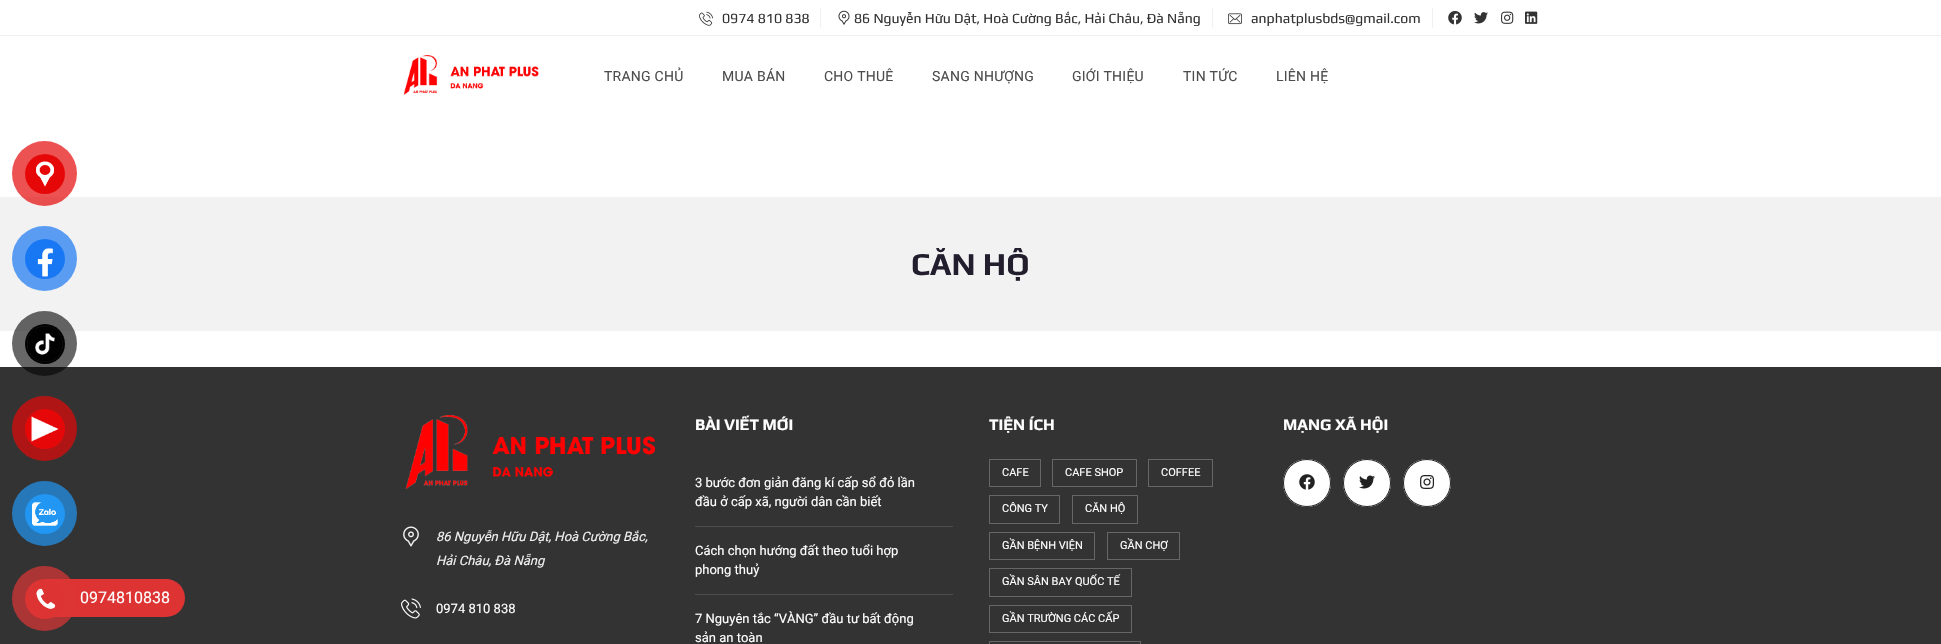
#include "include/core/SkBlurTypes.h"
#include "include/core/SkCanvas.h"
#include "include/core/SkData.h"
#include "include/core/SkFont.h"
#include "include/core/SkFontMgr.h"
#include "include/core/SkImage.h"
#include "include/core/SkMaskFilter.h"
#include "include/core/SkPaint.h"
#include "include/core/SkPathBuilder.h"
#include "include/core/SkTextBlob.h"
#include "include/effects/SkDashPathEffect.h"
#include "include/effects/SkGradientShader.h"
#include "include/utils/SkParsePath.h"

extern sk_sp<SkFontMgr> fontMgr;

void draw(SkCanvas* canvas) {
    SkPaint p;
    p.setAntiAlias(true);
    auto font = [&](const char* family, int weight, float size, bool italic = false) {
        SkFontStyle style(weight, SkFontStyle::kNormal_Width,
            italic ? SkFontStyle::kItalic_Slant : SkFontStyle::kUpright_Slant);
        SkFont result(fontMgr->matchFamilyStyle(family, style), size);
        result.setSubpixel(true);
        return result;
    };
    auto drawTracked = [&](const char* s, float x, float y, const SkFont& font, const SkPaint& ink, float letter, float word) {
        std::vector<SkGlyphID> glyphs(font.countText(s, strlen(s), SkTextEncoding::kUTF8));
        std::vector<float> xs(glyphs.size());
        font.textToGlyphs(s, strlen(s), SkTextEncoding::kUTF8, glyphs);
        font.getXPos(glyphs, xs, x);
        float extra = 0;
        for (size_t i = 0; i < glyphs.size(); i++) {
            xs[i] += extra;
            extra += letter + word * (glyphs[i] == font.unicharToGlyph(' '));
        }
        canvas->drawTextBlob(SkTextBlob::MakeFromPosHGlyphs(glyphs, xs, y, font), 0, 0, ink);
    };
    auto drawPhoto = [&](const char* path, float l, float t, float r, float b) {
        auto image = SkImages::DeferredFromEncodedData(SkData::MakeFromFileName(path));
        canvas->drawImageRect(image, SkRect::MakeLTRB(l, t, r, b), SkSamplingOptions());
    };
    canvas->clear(0xFFFFFFFF);
    p.setColor(0xFFF0F0F0);
    canvas->drawRect(SkRect::MakeLTRB(0, 35, 1941, 36), p);
    drawPhoto("media/1.png", 699, 11, 713, 26);
    auto font1 = font("Play", 400, 14);
    p.setColor(0xFF333333);
    canvas->drawString("0974 810 838", 722, 23, font1, p);
    p.setColor(0xFFF0F0F0);
    canvas->drawRect(SkRect::MakeLTRB(820, 8, 821, 28), p);
    drawPhoto("media/2.png", 838, 10, 850, 25);
    p.setColor(0xFF333333);
    canvas->drawString("86 Nguyễn Hữu Dật, Hoà Cường Bắc, Hải Châu, Đà Nẵng", 854, 23, font1, p);
    p.setColor(0xFFF0F0F0);
    canvas->drawRect(SkRect::MakeLTRB(1212, 8, 1213, 28), p);
    drawPhoto("media/3.png", 1228, 13, 1242, 25);
    p.setColor(0xFF333333);
    canvas->drawString("anphatplusbds@gmail.com", 1251, 23, font1, p);
    p.setColor(0xFFF0F0F0);
    canvas->drawRect(SkRect::MakeLTRB(1432, 8, 1433, 28), p);
    drawPhoto("media/4.png", 1448, 11, 1462, 25);
    drawPhoto("media/5.png", 1474, 12, 1488, 24);
    drawPhoto("media/6.png", 1501, 11, 1514, 24);
    drawPhoto("media/7.png", 1525, 11, 1538, 24);
    drawPhoto("media/8.png", 403, 55, 539, 95);
    auto font2 = font("Roboto", 400, 14);
    p.setColor(0xFF4D4D4D);
    {
        const struct { const char* s; float x, y; } items[] = {
            {"TRANG CHỦ", 604, 81},
            {"MUA BÁN", 722, 81},
            {"CHO THUÊ", 824, 81},
            {"SANG NHƯỢNG", 932, 81},
            {"GIỚI THIỆU", 1072, 81},
            {"TIN TỨC", 1183, 81},
            {"LIÊN HỆ", 1276, 81},
        };
        for (auto [s, x, y] : items) {
            drawTracked(s, x, y, font2, p, 0.25f, 0);
        }
    }
    p.setColor(0xFFF2F2F2);
    canvas->drawRect(SkRect::MakeLTRB(0, 197, 1941, 331), p);
    auto font3 = font("Play", 700, 32);
    p.setColor(0xFF231E2E);
    canvas->drawString("CĂN HỘ", 911, 275, font3, p);
    p.setColor(0xB3E60808);
    canvas->drawCircle(44.5f, 173.5f, 32.5f, p);
    p.setColor(0xFFE60808);
    canvas->drawCircle(45, 174, 20, p);
    drawPhoto("media/9.png", 36, 161, 54, 187);
    p.setColor(0xFF599CF2);
    canvas->drawCircle(44.5f, 258.5f, 32.5f, p);
    p.setColor(0xFF1877F2);
    canvas->drawCircle(45, 259, 20, p);
    drawPhoto("media/10.png", 37, 248, 54, 277);
    p.setColor(0xFF333333);
    canvas->drawRect(SkRect::MakeLTRB(0, 367, 1941, 644), p);
    p.setColor(0x99020202);
    canvas->drawCircle(44.5f, 343.5f, 32.5f, p);
    p.setColor(0xFF020202);
    canvas->drawCircle(45, 344, 20, p);
    drawPhoto("media/11.png", 27, 326, 63, 362);
    p.setColor(0xFFB01515);
    canvas->drawCircle(44.5f, 428.5f, 32.5f, p);
    p.setColor(0xFFE60808);
    canvas->drawCircle(45, 429, 20, p);
    drawPhoto("media/12.png", 31, 416, 59, 442);
    p.setColor(0xFF2678B9);
    canvas->drawCircle(44.5f, 513.5f, 32.5f, p);
    p.setColor(0xFF2196F3);
    canvas->drawCircle(45, 514, 20, p);
    drawPhoto("media/13.png", 32, 502, 58, 526);
    p.setColor(0xFFDD3333);
    canvas->drawRoundRect(SkRect::MakeLTRB(30, 579, 185, 617), 19, 19, p);
    p.setColor(0xB3DD3333);
    canvas->drawCircle(44.5f, 598.5f, 32.5f, p);
    p.setColor(0xFFDD3333);
    canvas->drawCircle(45, 599, 20, p);
    drawPhoto("media/14.png", 36, 588, 56, 609);
    auto font4 = font("Roboto", 400, 16);
    p.setColor(0xFFFFFFFF);
    canvas->drawString("0974810838", 80, 603, font4, p);
    auto font5 = font("Play", 700, 16);
    canvas->drawString("BÀI VIẾT MỚI", 695, 430, font5, p);
    p.setColor(0xFF4D4D4D);
    canvas->drawRect(SkRect::MakeLTRB(695, 526, 953, 527), p);
    auto font6 = font("Roboto", 400, 13);
    p.setColor(0xFFFFFFFF);
    canvas->drawString("3 bước đơn giản đăng kí cấp sổ đỏ lần", 695, 487, font6, p);
    canvas->drawString("đầu ở cấp xã, người dân cần biết", 695, 506, font6, p);
    p.setColor(0xFF4D4D4D);
    canvas->drawRect(SkRect::MakeLTRB(695, 594, 953, 595), p);
    p.setColor(0xFFFFFFFF);
    {
        const struct { const char* s; float x, y; } items[] = {
            {"Cách chọn hướng đất theo tuổi hợp", 695, 555},
            {"phong thuỷ", 695, 574},
            {"7 Nguyên tắc “VÀNG” đầu tư bất động", 695, 623},
            {"sản an toàn", 695, 642},
        };
        for (auto [s, x, y] : items) {
            canvas->drawString(s, x, y, font6, p);
        }
    }
    canvas->drawString("TIỆN ÍCH", 989, 430, font5, p);
    p.setStyle(SkPaint::kStroke_Style);
    p.setStrokeWidth(1);
    p.setColor(0xFF666666);
    canvas->drawRect(SkRect::MakeLTRB(989.5f, 459.5f, 1040.5f, 486.5f), p);
    auto font7 = font("Roboto", 400, 11);
    p.setStyle(SkPaint::kFill_Style);
    p.setColor(0xFFFFFFFF);
    canvas->drawString("CAFE", 1002, 476, font7, p);
    p.setStyle(SkPaint::kStroke_Style);
    p.setColor(0xFF666666);
    canvas->drawRect(SkRect::MakeLTRB(1052.5f, 459.5f, 1136.5f, 486.5f), p);
    p.setStyle(SkPaint::kFill_Style);
    p.setColor(0xFFFFFFFF);
    canvas->drawString("CAFE SHOP", 1065, 476, font7, p);
    p.setStyle(SkPaint::kStroke_Style);
    p.setColor(0xFF666666);
    canvas->drawRect(SkRect::MakeLTRB(1148.5f, 459.5f, 1212.5f, 486.5f), p);
    p.setStyle(SkPaint::kFill_Style);
    p.setColor(0xFFFFFFFF);
    canvas->drawString("COFFEE", 1161, 476, font7, p);
    p.setStyle(SkPaint::kStroke_Style);
    p.setColor(0xFF666666);
    canvas->drawRect(SkRect::MakeLTRB(989.5f, 495.5f, 1059.5f, 523.5f), p);
    p.setStyle(SkPaint::kFill_Style);
    p.setColor(0xFFFFFFFF);
    canvas->drawString("CÔNG TY", 1002, 512, font7, p);
    p.setStyle(SkPaint::kStroke_Style);
    p.setColor(0xFF666666);
    canvas->drawRect(SkRect::MakeLTRB(1072.5f, 495.5f, 1137.5f, 523.5f), p);
    p.setStyle(SkPaint::kFill_Style);
    p.setColor(0xFFFFFFFF);
    canvas->drawString("CĂN HỘ", 1085, 512, font7, p);
    p.setStyle(SkPaint::kStroke_Style);
    p.setColor(0xFF666666);
    canvas->drawRect(SkRect::MakeLTRB(989.5f, 532.5f, 1094.5f, 559.5f), p);
    p.setStyle(SkPaint::kFill_Style);
    p.setColor(0xFFFFFFFF);
    canvas->drawString("GẦN BỆNH VIỆN", 1002, 549, font7, p);
    p.setStyle(SkPaint::kStroke_Style);
    p.setColor(0xFF666666);
    canvas->drawRect(SkRect::MakeLTRB(1107.5f, 532.5f, 1179.5f, 559.5f), p);
    p.setStyle(SkPaint::kFill_Style);
    p.setColor(0xFFFFFFFF);
    canvas->drawString("GẦN CHỢ", 1120, 549, font7, p);
    p.setStyle(SkPaint::kStroke_Style);
    p.setColor(0xFF666666);
    canvas->drawRect(SkRect::MakeLTRB(989.5f, 568.5f, 1131.5f, 596.5f), p);
    p.setStyle(SkPaint::kFill_Style);
    p.setColor(0xFFFFFFFF);
    canvas->drawString("GẦN SÂN BAY QUỐC TẾ", 1002, 585, font7, p);
    p.setStyle(SkPaint::kStroke_Style);
    p.setColor(0xFF666666);
    canvas->drawRect(SkRect::MakeLTRB(989.5f, 605.5f, 1131.5f, 632.5f), p);
    p.setStyle(SkPaint::kFill_Style);
    p.setColor(0xFFFFFFFF);
    canvas->drawString("GẦN TRƯỜNG CÁC CẤP", 1002, 622, font7, p);
    p.setStyle(SkPaint::kStroke_Style);
    p.setColor(0xFF666666);
    canvas->drawRect(SkRect::MakeLTRB(989.5f, 641.5f, 1140.5f, 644.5f), p);
    p.setStyle(SkPaint::kFill_Style);
    p.setColor(0xFFFFFFFF);
    canvas->drawString("MẠNG XÃ HỘI", 1283, 430, font5, p);
    canvas->drawCircle(1307, 483, 24, p);
    drawPhoto("media/15.png", 1299, 474, 1315, 490);
    p.setStyle(SkPaint::kStroke_Style);
    p.setColor(0xFF222222);
    canvas->drawCircle(1307, 483, 23.5f, p);
    p.setStyle(SkPaint::kFill_Style);
    p.setColor(0xFFFFFFFF);
    canvas->drawCircle(1367, 483, 24, p);
    drawPhoto("media/16.png", 1359, 475, 1375, 489);
    p.setStyle(SkPaint::kStroke_Style);
    p.setColor(0xFF222222);
    canvas->drawCircle(1367, 483, 23.5f, p);
    p.setStyle(SkPaint::kFill_Style);
    p.setColor(0xFFFFFFFF);
    canvas->drawCircle(1427, 483, 24, p);
    drawPhoto("media/17.png", 1420, 475, 1435, 489);
    p.setStyle(SkPaint::kStroke_Style);
    p.setColor(0xFF222222);
    canvas->drawCircle(1427, 483, 23.5f, p);
    drawPhoto("media/18.png", 405, 415, 656, 489);
    drawPhoto("media/19.png", 403, 526, 419, 547);
    auto font8 = font("Roboto", 400, 13, true);
    p.setStyle(SkPaint::kFill_Style);
    p.setColor(0xFFF0F0F0);
    canvas->drawString("86 Nguyễn Hữu Dật, Hoà Cường Bắc,", 436, 541, font8, p);
    canvas->drawString("Hải Châu, Đà Nẵng", 436, 565, font8, p);
    drawPhoto("media/20.png", 401, 598, 421, 619);
    p.setColor(0xFFFFFFFF);
    canvas->drawString("0974 810 838", 436, 613, font6, p);
}
